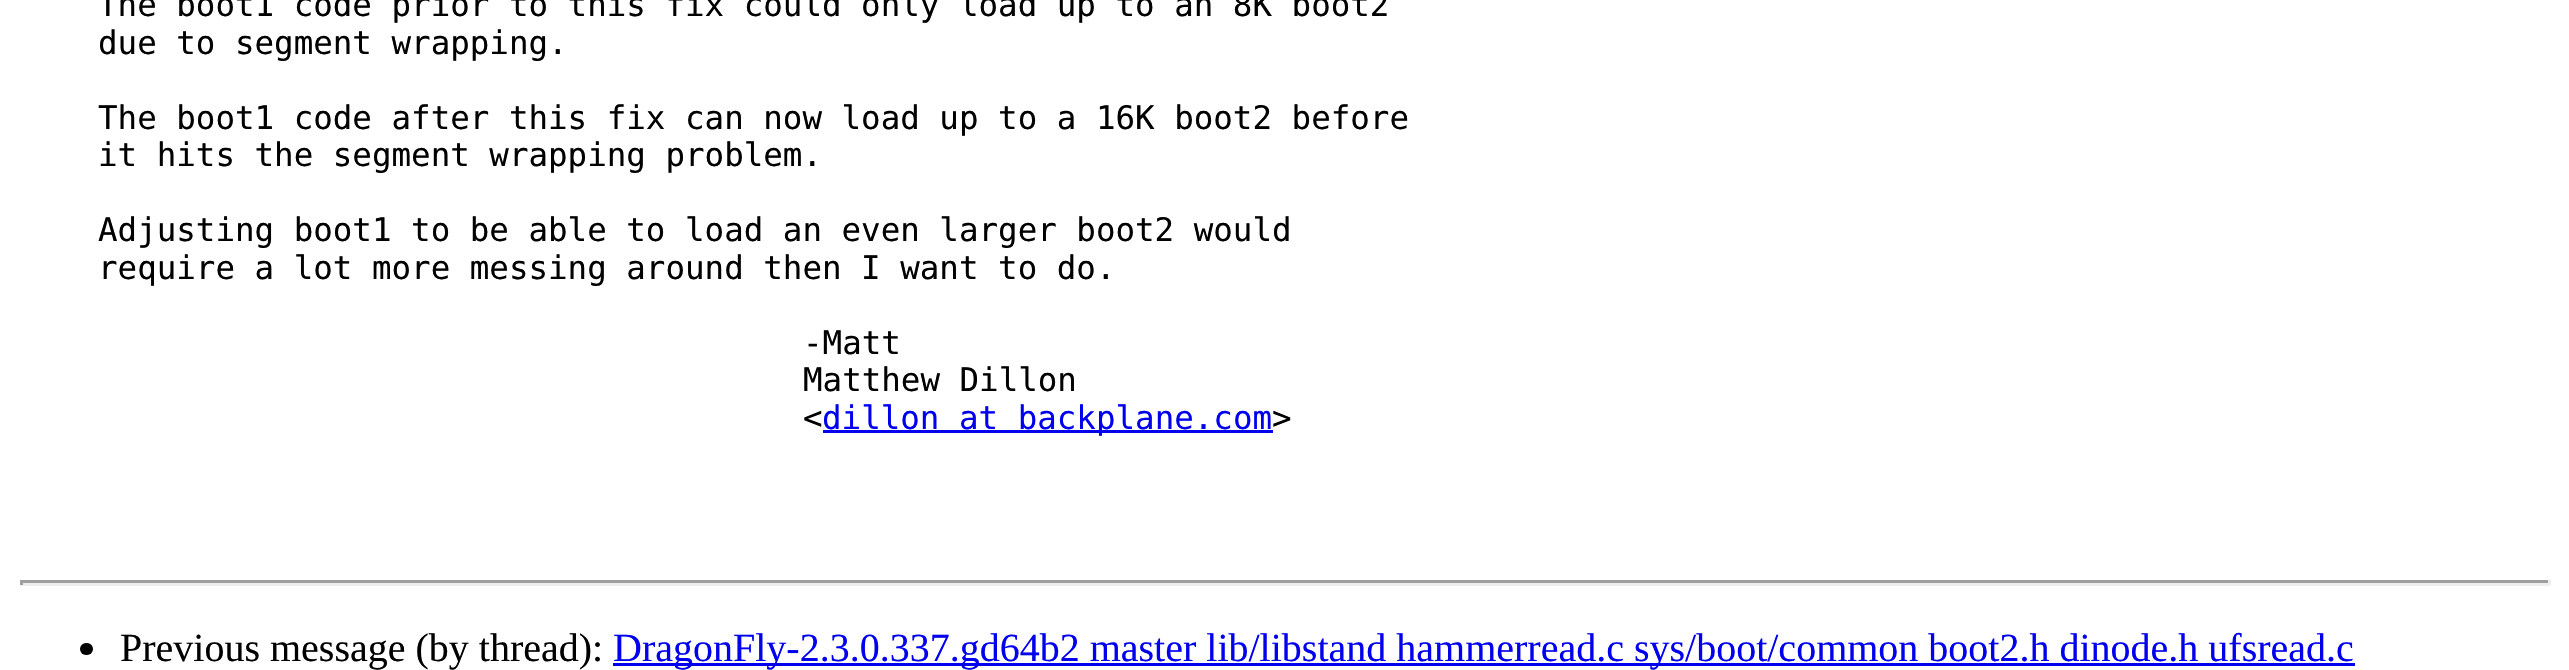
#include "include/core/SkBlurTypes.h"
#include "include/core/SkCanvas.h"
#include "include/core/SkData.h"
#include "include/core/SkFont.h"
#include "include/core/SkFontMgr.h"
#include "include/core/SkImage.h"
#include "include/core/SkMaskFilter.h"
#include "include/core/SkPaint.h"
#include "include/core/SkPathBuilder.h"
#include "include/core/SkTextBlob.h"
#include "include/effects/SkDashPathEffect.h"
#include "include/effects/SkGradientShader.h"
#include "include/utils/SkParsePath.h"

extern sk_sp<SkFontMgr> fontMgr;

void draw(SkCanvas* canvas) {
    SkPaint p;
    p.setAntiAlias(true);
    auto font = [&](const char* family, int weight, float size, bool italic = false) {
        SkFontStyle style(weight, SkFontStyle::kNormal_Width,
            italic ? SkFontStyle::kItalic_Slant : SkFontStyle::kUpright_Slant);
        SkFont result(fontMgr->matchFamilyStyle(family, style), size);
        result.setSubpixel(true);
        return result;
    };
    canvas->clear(0xFFFFFFFF);
    auto font1 = font("DejaVu Sans Mono", 400, 32.5f);
    p.setColor(0xFF000000);
    {
        const struct { const char* s; float x, y; } items[] = {
            {"The boot1 code prior to this fix could only load up to an 8K boot2", 98, 16},
            {"due to segment wrapping.", 98, 54},
            {"The boot1 code after this fix can now load up to a 16K boot2 before", 98, 129},
            {"it hits the segment wrapping problem.", 98, 166},
            {"Adjusting boot1 to be able to load an even larger boot2 would", 98, 241},
            {"require a lot more messing around then I want to do.", 98, 279},
            {"-Matt", 803, 354},
            {"Matthew Dillon", 803, 391},
            {"<", 803, 429},
        };
        for (auto [s, x, y] : items) {
            canvas->drawString(s, x, y, font1, p);
        }
    }
    p.setColor(0xFF0000EE);
    canvas->drawRect(SkRect::MakeLTRB(823, 430, 1273, 433), p);
    canvas->drawString("dillon at backplane.com", 822, 429, font1, p);
    p.setColor(0xFF000000);
    canvas->drawString(">", 1272, 429, font1, p);
    {
        const struct { float l, t, r, b; SkColor color; } items[] = {
            {20, 580, 2550, 583, 0xFF9F9F9F},
            {2548, 580, 2551, 585, 0xFFEEEEEE},
            {20, 583, 2550, 586, 0xFFEEEEEE},
            {20, 580, 23, 585, 0xFF9F9F9F},
        };
        for (auto [l, t, r, b, color] : items) {
            p.setColor(color);
            canvas->drawRect(SkRect::MakeLTRB(l, t, r, b), p);
        }
    }
    p.setColor(0xFF000000);
    canvas->drawRoundRect(SkRect::MakeLTRB(80, 643, 93, 655), 6, 6, p);
    auto font2 = font("Liberation Serif", 400, 40);
    canvas->drawString("Previous message (by thread):", 120, 661, font2, p);
    p.setColor(0xFF0000EE);
    canvas->drawRect(SkRect::MakeLTRB(613, 663, 2355, 666), p);
    canvas->drawString("DragonFly-2.3.0.337.gd64b2 master lib/libstand hammerread.c sys/boot/common boot2.h dinode.h ufsread.c", 613, 661, font2, p);
}
